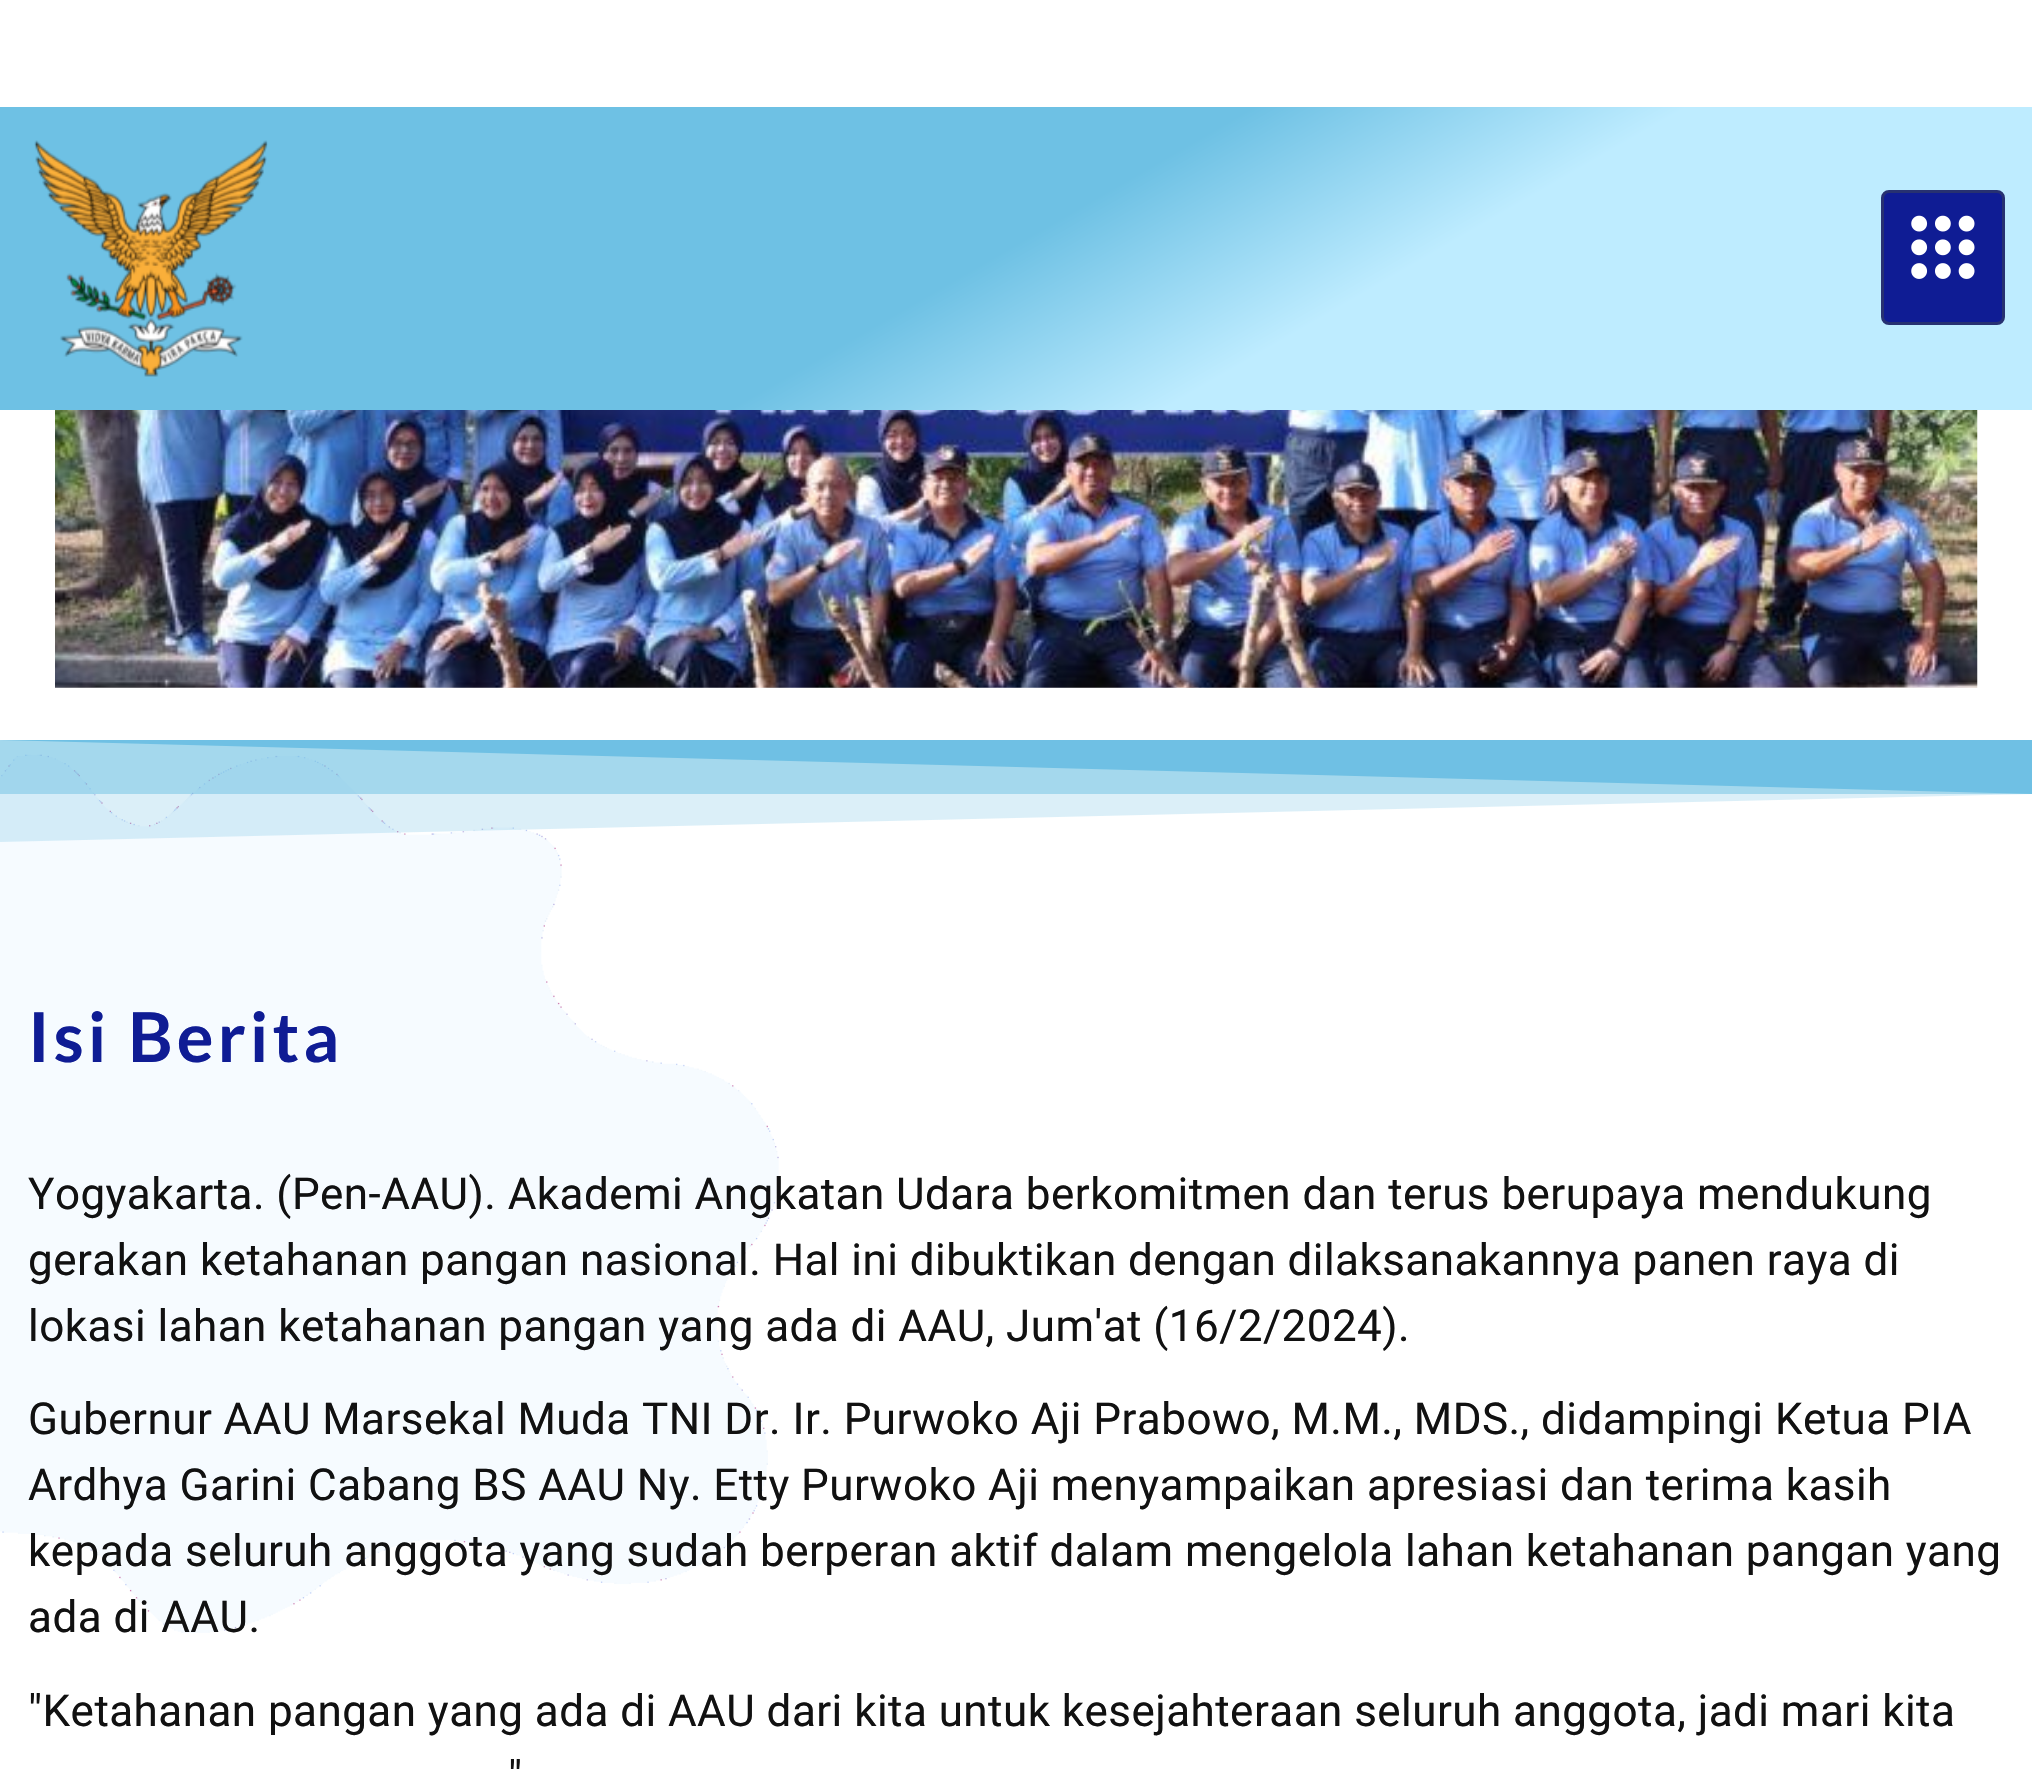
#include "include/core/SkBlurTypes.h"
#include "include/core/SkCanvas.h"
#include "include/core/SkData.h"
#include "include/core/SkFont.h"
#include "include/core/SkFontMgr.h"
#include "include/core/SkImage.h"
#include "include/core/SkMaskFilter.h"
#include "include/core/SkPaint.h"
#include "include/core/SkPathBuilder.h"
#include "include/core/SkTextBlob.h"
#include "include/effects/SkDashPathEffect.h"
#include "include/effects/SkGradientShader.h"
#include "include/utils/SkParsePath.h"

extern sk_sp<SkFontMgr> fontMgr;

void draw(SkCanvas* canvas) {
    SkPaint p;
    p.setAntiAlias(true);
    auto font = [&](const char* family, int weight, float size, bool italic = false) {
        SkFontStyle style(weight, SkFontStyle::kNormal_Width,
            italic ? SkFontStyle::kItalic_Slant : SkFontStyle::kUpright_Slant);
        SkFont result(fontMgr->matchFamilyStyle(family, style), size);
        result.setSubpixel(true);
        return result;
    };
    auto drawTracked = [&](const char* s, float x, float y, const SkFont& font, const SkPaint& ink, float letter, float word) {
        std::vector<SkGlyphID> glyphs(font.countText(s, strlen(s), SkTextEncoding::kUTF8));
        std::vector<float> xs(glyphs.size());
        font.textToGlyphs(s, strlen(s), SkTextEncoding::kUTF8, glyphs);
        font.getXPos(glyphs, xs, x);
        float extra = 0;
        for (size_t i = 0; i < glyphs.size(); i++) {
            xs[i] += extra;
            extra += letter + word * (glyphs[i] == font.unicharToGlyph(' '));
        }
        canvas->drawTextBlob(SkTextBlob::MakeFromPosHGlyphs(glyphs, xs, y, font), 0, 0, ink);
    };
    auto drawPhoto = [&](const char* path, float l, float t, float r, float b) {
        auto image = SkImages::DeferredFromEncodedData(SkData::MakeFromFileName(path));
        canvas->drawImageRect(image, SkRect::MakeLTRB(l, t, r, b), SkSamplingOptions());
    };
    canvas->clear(0xFFFFFFFF);
    {
        const SkColor colors[] = {0xFF6EC1E4, 0xFFBEECFF};
        const float stops[] = {0.49f, 0.66f};
        const SkPoint ends[] = {{697, -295}, {1336, 812}};
        p.setShader(SkGradientShader::MakeLinear(ends, colors, stops, 2, SkTileMode::kClamp));
        p.setAlpha(255);
    }
    canvas->drawRect(SkRect::MakeLTRB(0, 107, 2032, 410), p);
    drawPhoto("media/1.png", 34, 140, 268, 377);
    p.setShader(nullptr);
    p.setColor(0xFF0F1C94);
    canvas->drawRoundRect(SkRect::MakeLTRB(1882.5f, 191.5f, 2003.5f, 323.5f), 6.5f, 6.5f, p);
    p.setStyle(SkPaint::kStroke_Style);
    p.setStrokeWidth(3);
    p.setColor(0xFF273171);
    canvas->drawRoundRect(SkRect::MakeLTRB(1882.5f, 191.5f, 2003.5f, 323.5f), 6.5f, 6.5f, p);
    drawPhoto("media/2.png", 1911, 215, 1975, 279);
    drawPhoto("media/3.png", 55, 410, 1978, 688);
    drawPhoto("media/4.png", 0, 754, 779, 1633);
    p.setStyle(SkPaint::kFill_Style);
    p.setColor(0xFF6EC1E4);
    canvas->drawPath(SkPathBuilder().moveTo(0, 740).lineTo(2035, 740).lineTo(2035, 794).close().detach(), p);
    p.setColor(0x806EC1E4);
    canvas->drawRect(SkRect::MakeLTRB(0, 740, 2032, 794), p);
    p.setColor(0x406EC1E4);
    canvas->drawPath(SkPathBuilder().moveTo(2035, 740).lineTo(0, 740).lineTo(0, 842).lineTo(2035, 794).close().detach(), p);
    auto font1 = font("Lato", 700, 68.75f);
    p.setColor(0xFF0F1C94);
    drawTracked("Isi Berita", 28, 1062, font1, p, 4.1f, 0);
    auto font2 = font("Roboto", 400, 44);
    p.setColor(0xFF111111);
    {
        const struct { const char* s; float x, y; } items[] = {
            {"Yogyakarta. (Pen-AAU). Akademi Angkatan Udara berkomitmen dan terus berupaya mendukung", 28, 1209},
            {"gerakan ketahanan pangan nasional. Hal ini dibuktikan dengan dilaksanakannya panen raya di", 28, 1275},
            {"lokasi lahan ketahanan pangan yang ada di AAU, Jum'at (16/2/2024).", 28, 1341},
            {"Gubernur AAU Marsekal Muda TNI Dr. Ir. Purwoko Aji Prabowo, M.M., MDS., didampingi Ketua PIA", 28, 1434},
            {"Ardhya Garini Cabang BS AAU Ny. Etty Purwoko Aji menyampaikan apresiasi dan terima kasih", 28, 1500},
            {"kepada seluruh anggota yang sudah berperan aktif dalam mengelola lahan ketahanan pangan yang", 28, 1566},
            {"ada di AAU.", 28, 1632},
            {"\"Ketahanan pangan yang ada di AAU dari kita untuk kesejahteraan seluruh anggota, jadi mari kita", 28, 1726},
            {"\"", 508, 1792},
        };
        for (auto [s, x, y] : items) {
            drawTracked(s, x, y, font2, p, 0.45f, 0);
        }
    }
}
